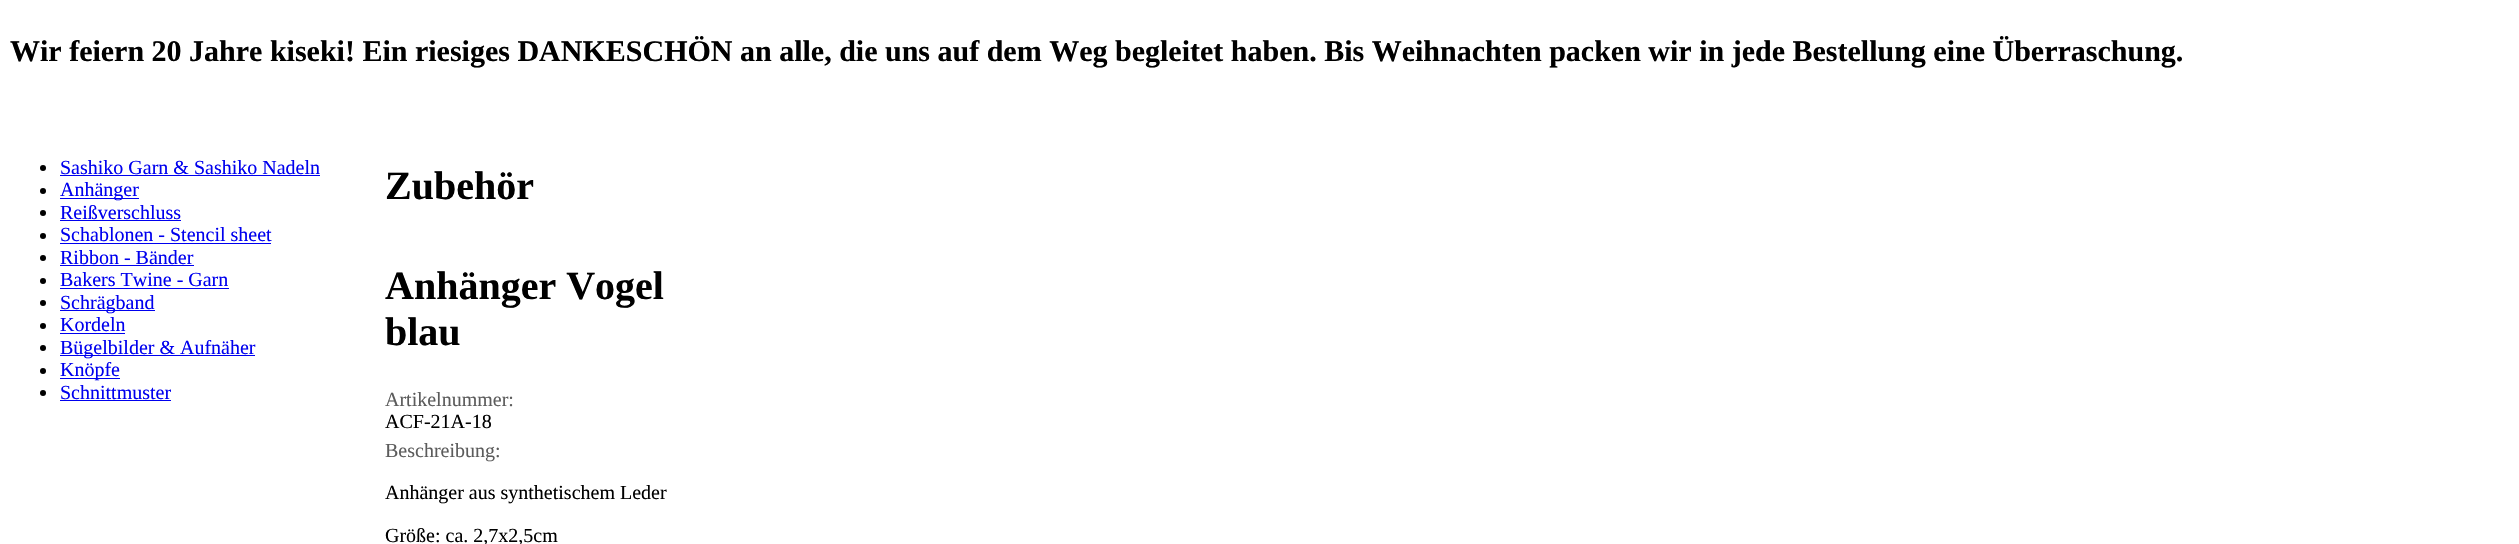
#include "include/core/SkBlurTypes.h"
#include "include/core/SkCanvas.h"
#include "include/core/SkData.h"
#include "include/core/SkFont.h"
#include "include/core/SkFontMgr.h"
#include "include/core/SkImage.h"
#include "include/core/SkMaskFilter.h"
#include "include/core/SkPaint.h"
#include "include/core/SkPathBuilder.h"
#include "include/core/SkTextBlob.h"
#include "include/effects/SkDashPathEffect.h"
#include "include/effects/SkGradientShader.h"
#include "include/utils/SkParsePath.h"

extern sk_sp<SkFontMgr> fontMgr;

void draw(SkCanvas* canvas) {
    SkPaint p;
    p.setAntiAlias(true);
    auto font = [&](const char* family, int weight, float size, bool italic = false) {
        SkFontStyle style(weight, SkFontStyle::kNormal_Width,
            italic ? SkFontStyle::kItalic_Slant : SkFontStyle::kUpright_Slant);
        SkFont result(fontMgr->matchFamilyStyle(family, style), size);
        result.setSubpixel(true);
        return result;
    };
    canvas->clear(0xFFFFFFFF);
    auto font1 = font("Liberation Serif", 700, 30);
    p.setColor(0xFF000000);
    canvas->drawString("Wir feiern 20 Jahre kiseki! Ein riesiges DANKESCHÖN an alle, die uns auf dem Weg begleitet haben. Bis Weihnachten packen wir in jede Bestellung eine Überraschung.", 10, 61, font1, p);
    canvas->drawCircle(43, 168, 3, p);
    auto font2 = font("Liberation Serif", 400, 20);
    p.setColor(0xFF0000EE);
    canvas->drawString("Sashiko Garn & Sashiko Nadeln", 60, 174, font2, p);
    canvas->drawRect(SkRect::MakeLTRB(60, 175, 320, 176), p);
    p.setColor(0xFF000000);
    canvas->drawCircle(43, 191, 3, p);
    p.setColor(0xFF0000EE);
    canvas->drawRect(SkRect::MakeLTRB(60, 198, 139, 199), p);
    canvas->drawString("Anhänger", 60, 196, font2, p);
    p.setColor(0xFF000000);
    canvas->drawCircle(43, 213, 3, p);
    p.setColor(0xFF0000EE);
    canvas->drawString("Reißverschluss", 60, 219, font2, p);
    canvas->drawRect(SkRect::MakeLTRB(60, 220, 181, 221), p);
    p.setColor(0xFF000000);
    canvas->drawCircle(43, 236, 3, p);
    p.setColor(0xFF0000EE);
    canvas->drawString("Schablonen - Stencil sheet", 60, 241, font2, p);
    canvas->drawRect(SkRect::MakeLTRB(60, 243, 271, 244), p);
    p.setColor(0xFF000000);
    canvas->drawCircle(43, 258, 3, p);
    p.setColor(0xFF0000EE);
    canvas->drawString("Ribbon - Bänder", 60, 264, font2, p);
    canvas->drawRect(SkRect::MakeLTRB(60, 265, 194, 266), p);
    p.setColor(0xFF000000);
    canvas->drawCircle(43, 281, 3, p);
    p.setColor(0xFF0000EE);
    canvas->drawString("Bakers Twine - Garn", 60, 286, font2, p);
    canvas->drawRect(SkRect::MakeLTRB(60, 288, 229, 289), p);
    p.setColor(0xFF000000);
    canvas->drawCircle(43, 303, 3, p);
    p.setColor(0xFF0000EE);
    canvas->drawRect(SkRect::MakeLTRB(60, 310, 155, 311), p);
    canvas->drawString("Schrägband", 60, 309, font2, p);
    p.setColor(0xFF000000);
    canvas->drawCircle(43, 326, 3, p);
    p.setColor(0xFF0000EE);
    canvas->drawString("Kordeln", 60, 331, font2, p);
    canvas->drawRect(SkRect::MakeLTRB(60, 333, 125, 334), p);
    p.setColor(0xFF000000);
    canvas->drawCircle(43, 348, 3, p);
    p.setColor(0xFF0000EE);
    canvas->drawRect(SkRect::MakeLTRB(60, 355, 255, 356), p);
    canvas->drawString("Bügelbilder & Aufnäher", 60, 354, font2, p);
    p.setColor(0xFF000000);
    canvas->drawCircle(43, 371, 3, p);
    p.setColor(0xFF0000EE);
    canvas->drawRect(SkRect::MakeLTRB(60, 378, 120, 379), p);
    canvas->drawString("Knöpfe", 60, 376, font2, p);
    p.setColor(0xFF000000);
    canvas->drawCircle(43, 393, 3, p);
    p.setColor(0xFF0000EE);
    canvas->drawString("Schnittmuster", 60, 399, font2, p);
    canvas->drawRect(SkRect::MakeLTRB(60, 400, 171, 401), p);
    auto font3 = font("Liberation Serif", 700, 40);
    p.setColor(0xFF000000);
    {
        const struct { const char* s; float x, y; } items[] = {
            {"Zubehör", 385, 199},
            {"Anhänger Vogel", 385, 299},
            {"blau", 385, 345},
        };
        for (auto [s, x, y] : items) {
            canvas->drawString(s, x, y, font3, p);
        }
    }
    p.setColor(0xFF5C5C5C);
    canvas->drawString("Artikelnummer:", 385, 406, font2, p);
    p.setColor(0xFF000000);
    canvas->drawString("ACF-21A-18", 385, 428, font2, p);
    p.setColor(0xFF5C5C5C);
    canvas->drawString("Beschreibung:", 385, 457, font2, p);
    p.setColor(0xFF000000);
    canvas->drawString("Anhänger aus synthetischem Leder", 385, 499, font2, p);
    canvas->drawString("Größe: ca. 2,7x2,5cm", 385, 542, font2, p);
}
